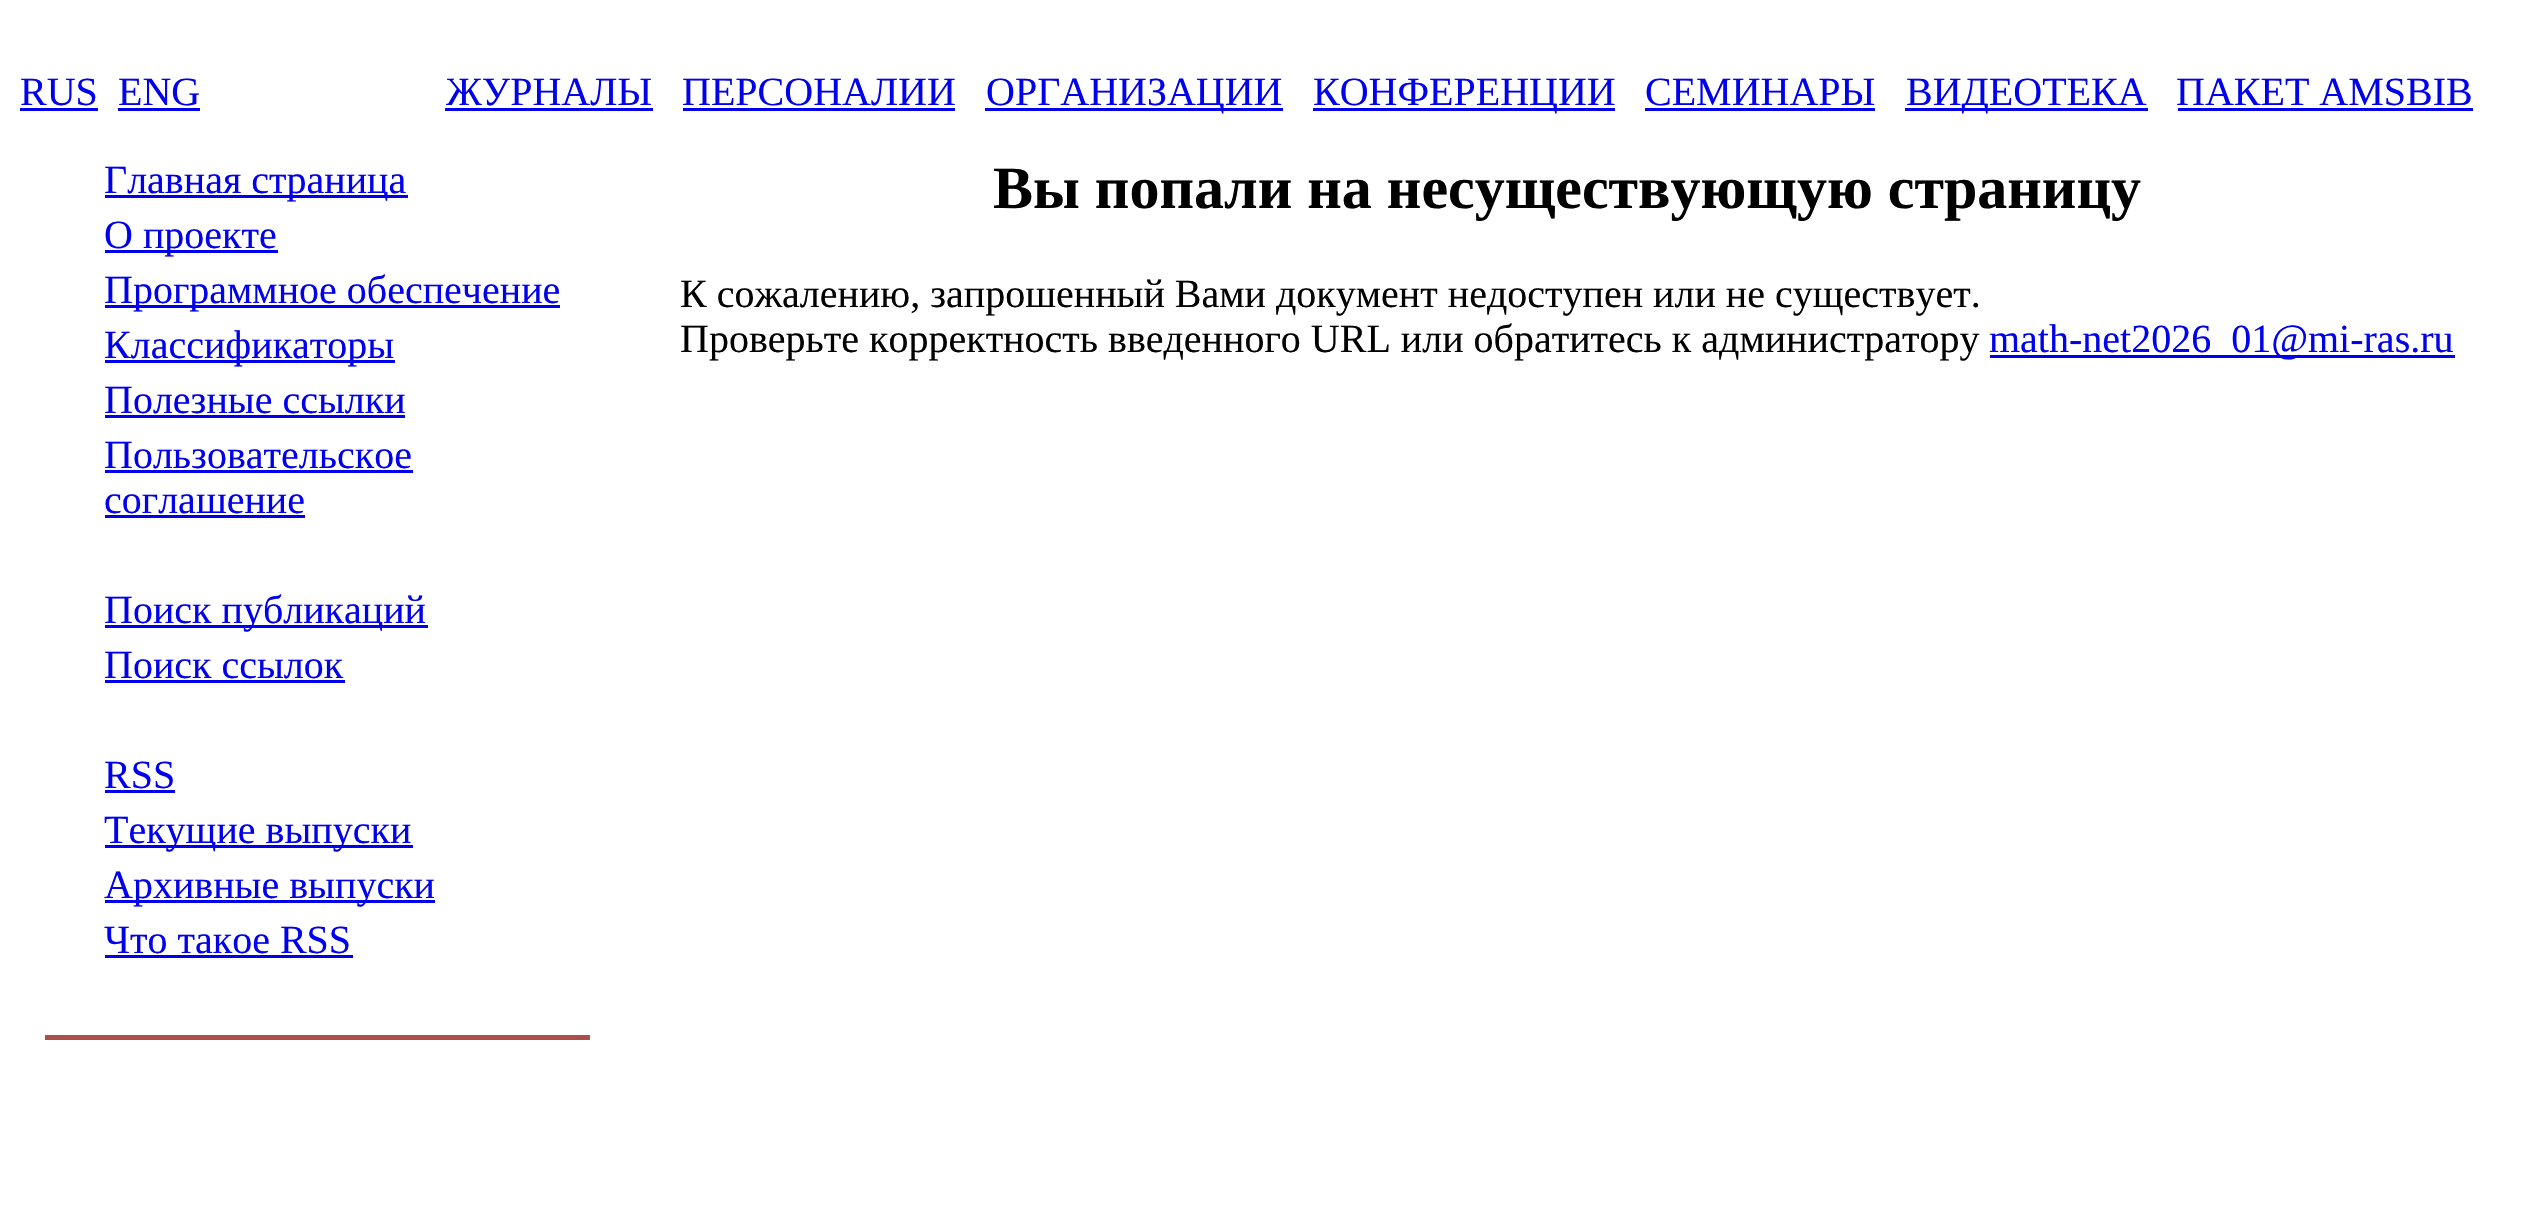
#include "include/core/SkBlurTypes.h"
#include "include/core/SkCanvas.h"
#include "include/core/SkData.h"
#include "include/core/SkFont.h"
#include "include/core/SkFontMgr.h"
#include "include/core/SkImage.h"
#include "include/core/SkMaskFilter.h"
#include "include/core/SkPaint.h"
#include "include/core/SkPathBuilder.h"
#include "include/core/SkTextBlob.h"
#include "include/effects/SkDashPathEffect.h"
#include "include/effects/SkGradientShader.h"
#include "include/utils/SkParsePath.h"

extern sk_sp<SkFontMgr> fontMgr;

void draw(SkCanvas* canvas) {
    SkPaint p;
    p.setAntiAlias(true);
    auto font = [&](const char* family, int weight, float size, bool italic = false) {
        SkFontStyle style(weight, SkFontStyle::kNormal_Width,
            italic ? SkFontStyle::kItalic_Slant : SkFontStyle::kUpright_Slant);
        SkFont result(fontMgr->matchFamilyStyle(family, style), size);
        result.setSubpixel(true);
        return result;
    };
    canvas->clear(0xFFFFFFFF);
    auto font1 = font("Liberation Serif", 400, 40);
    p.setColor(0xFF0000EE);
    canvas->drawString("RUS", 20, 105, font1, p);
    canvas->drawRect(SkRect::MakeLTRB(20, 108, 98, 111), p);
    canvas->drawString("ENG", 118, 105, font1, p);
    canvas->drawRect(SkRect::MakeLTRB(118, 108, 200, 111), p);
    canvas->drawString("ЖУРНАЛЫ", 446, 105, font1, p);
    canvas->drawRect(SkRect::MakeLTRB(445, 108, 653, 111), p);
    canvas->drawString("ПЕРСОНАЛИИ", 682, 105, font1, p);
    canvas->drawRect(SkRect::MakeLTRB(683, 108, 955, 111), p);
    canvas->drawRect(SkRect::MakeLTRB(985, 108, 1283, 111), p);
    canvas->drawString("ОРГАНИЗАЦИИ", 986, 105, font1, p);
    canvas->drawRect(SkRect::MakeLTRB(1313, 108, 1615, 111), p);
    canvas->drawString("КОНФЕРЕНЦИИ", 1313, 105, font1, p);
    canvas->drawString("СЕМИНАРЫ", 1645, 105, font1, p);
    canvas->drawRect(SkRect::MakeLTRB(1645, 108, 1875, 111), p);
    canvas->drawRect(SkRect::MakeLTRB(1905, 108, 2148, 111), p);
    canvas->drawString("ВИДЕОТЕКА", 1906, 105, font1, p);
    canvas->drawString("ПАКЕТ AMSBIB", 2176, 105, font1, p);
    canvas->drawRect(SkRect::MakeLTRB(2178, 108, 2473, 111), p);
    canvas->drawRect(SkRect::MakeLTRB(105, 195, 408, 198), p);
    canvas->drawString("Главная страница", 104, 193, font1, p);
    canvas->drawRect(SkRect::MakeLTRB(105, 250, 278, 253), p);
    canvas->drawString("О проекте", 104, 248, font1, p);
    canvas->drawRect(SkRect::MakeLTRB(105, 305, 560, 308), p);
    canvas->drawString("Программное обеспечение", 104, 303, font1, p);
    canvas->drawRect(SkRect::MakeLTRB(105, 360, 395, 363), p);
    canvas->drawString("Классификаторы", 104, 358, font1, p);
    canvas->drawString("Полезные ссылки", 104, 413, font1, p);
    canvas->drawRect(SkRect::MakeLTRB(105, 415, 405, 418), p);
    canvas->drawString("Пользовательское", 104, 468, font1, p);
    canvas->drawRect(SkRect::MakeLTRB(105, 470, 413, 473), p);
    canvas->drawString("соглашение", 104, 513, font1, p);
    canvas->drawRect(SkRect::MakeLTRB(105, 515, 305, 518), p);
    canvas->drawRect(SkRect::MakeLTRB(105, 625, 428, 628), p);
    canvas->drawString("Поиск публикаций", 104, 623, font1, p);
    canvas->drawString("Поиск ссылок", 104, 678, font1, p);
    canvas->drawRect(SkRect::MakeLTRB(105, 680, 345, 683), p);
    canvas->drawString("RSS", 104, 788, font1, p);
    canvas->drawRect(SkRect::MakeLTRB(105, 790, 175, 793), p);
    canvas->drawRect(SkRect::MakeLTRB(105, 845, 413, 848), p);
    canvas->drawString("Текущие выпуски", 104, 843, font1, p);
    canvas->drawRect(SkRect::MakeLTRB(105, 900, 435, 903), p);
    canvas->drawString("Архивные выпуски", 104, 898, font1, p);
    canvas->drawString("Что такое RSS", 104, 953, font1, p);
    canvas->drawRect(SkRect::MakeLTRB(105, 955, 353, 958), p);
    p.setColor(0xFFAC4E4A);
    canvas->drawRect(SkRect::MakeLTRB(45, 1035, 590, 1040), p);
    auto font2 = font("Liberation Serif", 700, 60);
    p.setColor(0xFF000000);
    canvas->drawString("Вы попали на несуществующую страницу", 993, 208, font2, p);
    canvas->drawString("К сожалению, запрошенный Вами документ недоступен или не существует.", 680, 307, font1, p);
    canvas->drawString("Проверьте корректность введенного URL или обратитесь к администратору", 680, 352, font1, p);
    p.setColor(0xFF0000EE);
    canvas->drawRect(SkRect::MakeLTRB(1990, 355, 2455, 358), p);
    canvas->drawString("math-net2026_01@mi-ras.ru", 1989, 352, font1, p);
}
